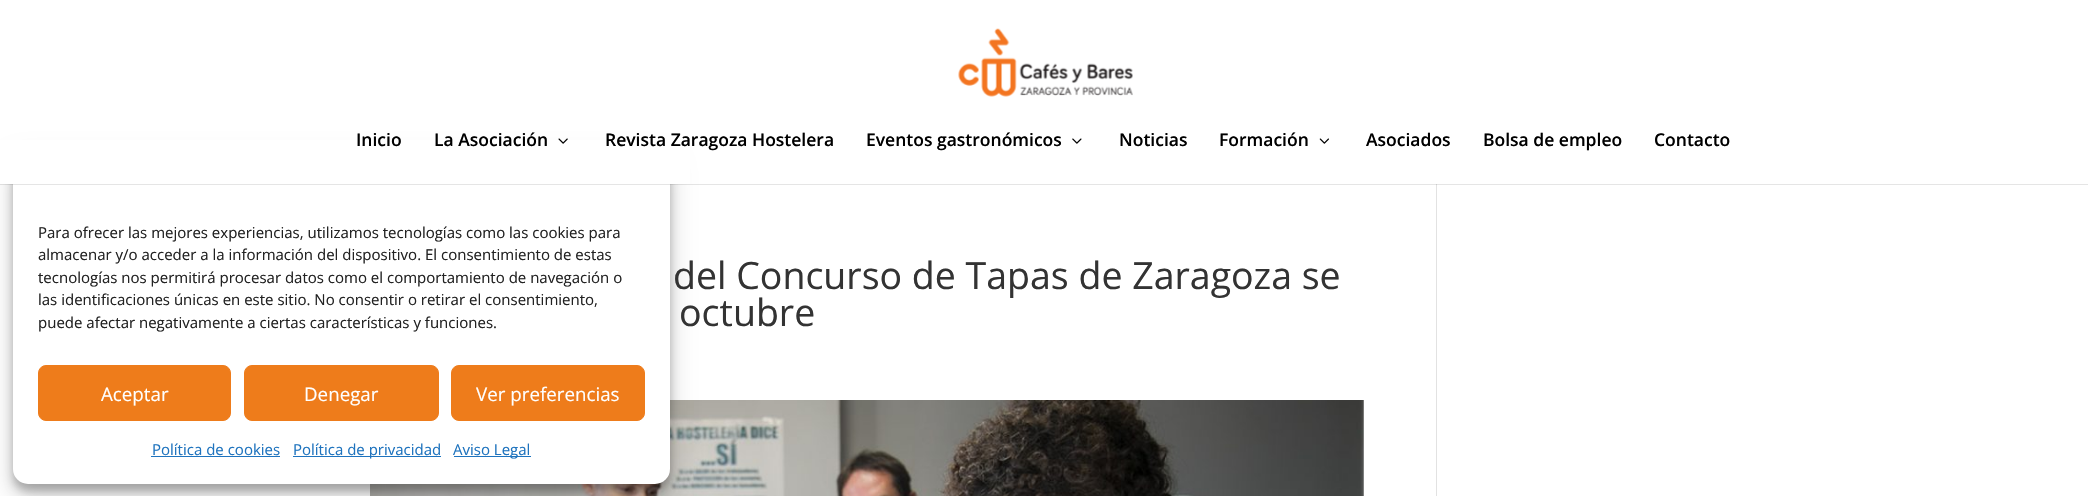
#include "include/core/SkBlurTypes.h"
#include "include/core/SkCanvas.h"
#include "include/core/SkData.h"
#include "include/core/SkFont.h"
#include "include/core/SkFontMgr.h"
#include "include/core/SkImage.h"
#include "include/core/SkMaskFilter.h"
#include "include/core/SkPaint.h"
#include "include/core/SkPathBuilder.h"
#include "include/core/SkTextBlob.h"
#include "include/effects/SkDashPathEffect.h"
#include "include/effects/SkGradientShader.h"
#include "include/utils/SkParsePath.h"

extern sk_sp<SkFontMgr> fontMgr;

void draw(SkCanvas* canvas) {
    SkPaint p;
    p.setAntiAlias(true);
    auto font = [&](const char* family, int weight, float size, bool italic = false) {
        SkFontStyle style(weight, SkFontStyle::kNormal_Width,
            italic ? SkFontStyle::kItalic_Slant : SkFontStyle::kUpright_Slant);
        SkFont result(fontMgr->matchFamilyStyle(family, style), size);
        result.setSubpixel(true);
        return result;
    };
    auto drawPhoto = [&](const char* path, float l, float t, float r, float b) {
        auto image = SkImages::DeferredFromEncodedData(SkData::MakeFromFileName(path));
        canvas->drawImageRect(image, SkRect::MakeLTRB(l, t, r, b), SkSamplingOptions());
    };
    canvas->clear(0xFFFFFFFF);
    drawPhoto("media/5.png", 370, 400, 1364, 496);
    p.setColor(0x3B000000);
    p.setMaskFilter(SkMaskFilter::MakeBlur(kNormal_SkBlurStyle, 4));
    canvas->drawRoundRect(SkRect::MakeLTRB(13, 155, 670, 491), 15, 15, p);
    p.setMaskFilter(nullptr);
    p.setColor(0x30000000);
    p.setMaskFilter(SkMaskFilter::MakeBlur(kNormal_SkBlurStyle, 12.5f));
    canvas->drawRoundRect(SkRect::MakeLTRB(13, 160, 670, 496), 15, 15, p);
    p.setMaskFilter(nullptr);
    p.setColor(0xFFFFFFFF);
    canvas->drawRoundRect(SkRect::MakeLTRB(13, 148, 670, 484), 15, 15, p);
    auto font1 = font("Open Sans", 400, 15);
    p.setColor(0xFF222222);
    {
        const struct { const char* s; float x, y; } items[] = {
            {"Para ofrecer las mejores experiencias, utilizamos tecnologías como las cookies para", 38, 238},
            {"almacenar y/o acceder a la información del dispositivo. El consentimiento de estas", 38, 260},
            {"tecnologías nos permitirá procesar datos como el comportamiento de navegación o", 38, 283},
            {"las identificaciones únicas en este sitio. No consentir o retirar el consentimiento,", 38, 305},
            {"puede afectar negativamente a ciertas características y funciones.", 38, 328},
        };
        for (auto [s, x, y] : items) {
            canvas->drawString(s, x, y, font1, p);
        }
    }
    p.setColor(0xFFEE7C1B);
    canvas->drawRoundRect(SkRect::MakeLTRB(38.5f, 365.5f, 230.5f, 420.5f), 7.5f, 7.5f, p);
    p.setStyle(SkPaint::kStroke_Style);
    p.setStrokeWidth(1);
    canvas->drawRoundRect(SkRect::MakeLTRB(38.5f, 365.5f, 230.5f, 420.5f), 7.5f, 7.5f, p);
    auto font2 = font("Open Sans", 400, 18.75f);
    p.setStyle(SkPaint::kFill_Style);
    p.setColor(0xFFFFFFFF);
    canvas->drawString("Aceptar", 101, 401, font2, p);
    p.setColor(0xFFEE7C1B);
    canvas->drawRoundRect(SkRect::MakeLTRB(244.5f, 365.5f, 438.5f, 420.5f), 7.5f, 7.5f, p);
    p.setStyle(SkPaint::kStroke_Style);
    canvas->drawRoundRect(SkRect::MakeLTRB(244.5f, 365.5f, 438.5f, 420.5f), 7.5f, 7.5f, p);
    p.setStyle(SkPaint::kFill_Style);
    p.setColor(0xFFFFFFFF);
    canvas->drawString("Denegar", 304, 401, font2, p);
    p.setColor(0xFFEE7C1B);
    canvas->drawRoundRect(SkRect::MakeLTRB(451.5f, 365.5f, 644.5f, 420.5f), 7.5f, 7.5f, p);
    p.setStyle(SkPaint::kStroke_Style);
    canvas->drawRoundRect(SkRect::MakeLTRB(451.5f, 365.5f, 644.5f, 420.5f), 7.5f, 7.5f, p);
    p.setStyle(SkPaint::kFill_Style);
    p.setColor(0xFFFFFFFF);
    canvas->drawString("Ver preferencias", 476, 401, font2, p);
    p.setColor(0xFF1E73BE);
    canvas->drawString("Política de cookies", 152, 455, font1, p);
    canvas->drawRect(SkRect::MakeLTRB(151, 456, 280, 457), p);
    canvas->drawRect(SkRect::MakeLTRB(293, 456, 441, 457), p);
    canvas->drawString("Política de privacidad", 293, 455, font1, p);
    canvas->drawRect(SkRect::MakeLTRB(454, 456, 531, 457), p);
    canvas->drawString("Aviso Legal", 453, 455, font1, p);
    p.setColor(0xFFE2E2E2);
    canvas->drawRect(SkRect::MakeLTRB(1436, 184, 1437, 496), p);
    p.setColor(0x1A000000);
    canvas->drawPath(SkPathBuilder().moveTo(0, 184).lineTo(0, 185).lineTo(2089, 185).lineTo(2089, 1).lineTo(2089, 184).close().detach(), p);
    p.setColor(0xFFFFFFFF);
    canvas->drawRect(SkRect::MakeLTRB(0, 140, 690, 184), p);
    drawPhoto("media/1.png", 958, 28, 1133, 97);
    auto font3 = font("Open Sans", 600, 17.5f);
    p.setColor(0xFF000000);
    canvas->drawString("Inicio", 356, 146, font3, p);
    canvas->drawString("La Asociación", 434, 146, font3, p);
    drawPhoto("media/2.png", 558, 138, 568, 144);
    canvas->drawString("Revista Zaragoza Hostelera", 605, 146, font3, p);
    canvas->drawString("Eventos gastronómicos", 866, 146, font3, p);
    drawPhoto("media/3.png", 1072, 138, 1082, 144);
    canvas->drawString("Noticias", 1119, 146, font3, p);
    canvas->drawString("Formación", 1219, 146, font3, p);
    drawPhoto("media/4.png", 1319, 138, 1329, 144);
    {
        const struct { const char* s; float x, y; } items[] = {
            {"Asociados", 1366, 146},
            {"Bolsa de empleo", 1483, 146},
            {"Contacto", 1654, 146},
        };
        for (auto [s, x, y] : items) {
            canvas->drawString(s, x, y, font3, p);
        }
    }
    auto font4 = font("Open Sans", 400, 37.5f);
    p.setColor(0xFF333333);
    canvas->drawString("del Concurso de Tapas de Zaragoza se", 673, 289, font4, p);
    canvas->drawString("octubre", 679, 326, font4, p);
}
